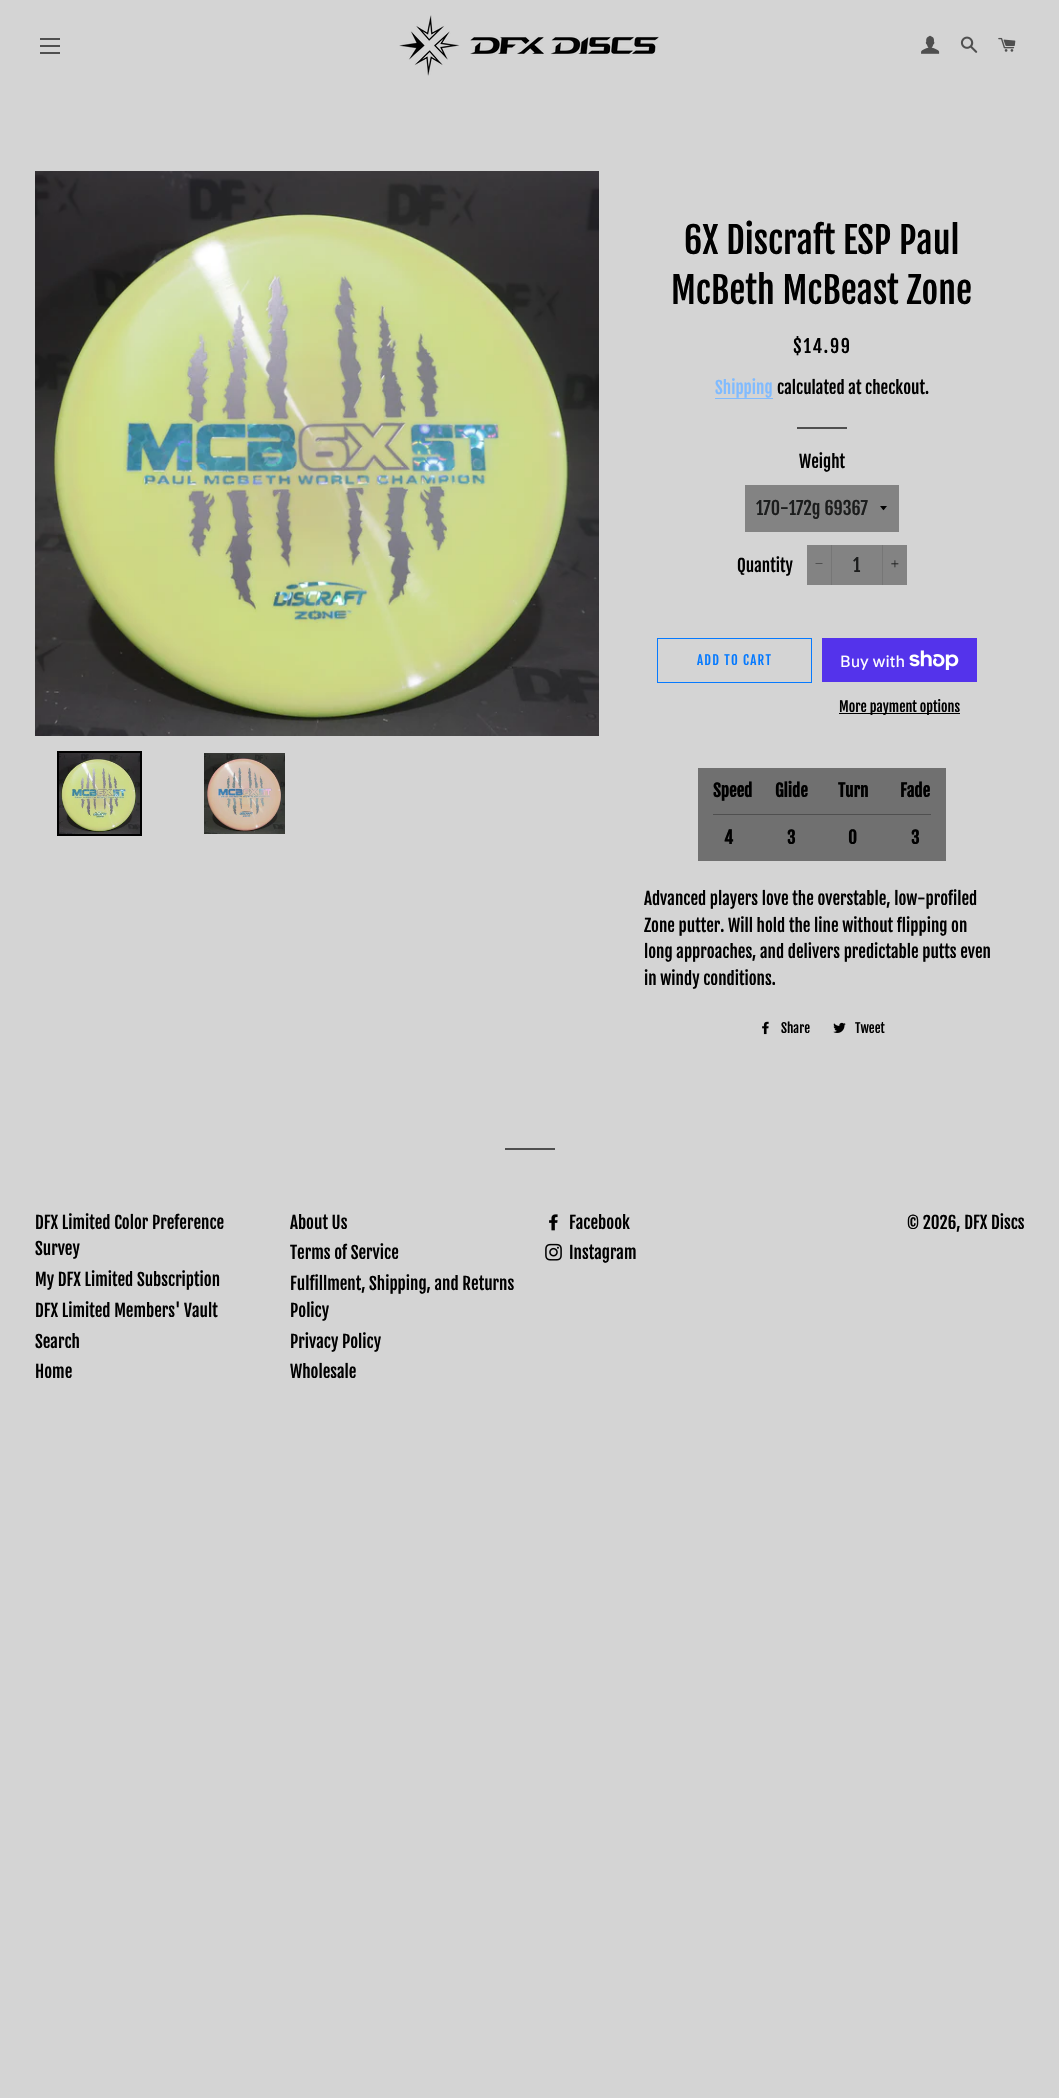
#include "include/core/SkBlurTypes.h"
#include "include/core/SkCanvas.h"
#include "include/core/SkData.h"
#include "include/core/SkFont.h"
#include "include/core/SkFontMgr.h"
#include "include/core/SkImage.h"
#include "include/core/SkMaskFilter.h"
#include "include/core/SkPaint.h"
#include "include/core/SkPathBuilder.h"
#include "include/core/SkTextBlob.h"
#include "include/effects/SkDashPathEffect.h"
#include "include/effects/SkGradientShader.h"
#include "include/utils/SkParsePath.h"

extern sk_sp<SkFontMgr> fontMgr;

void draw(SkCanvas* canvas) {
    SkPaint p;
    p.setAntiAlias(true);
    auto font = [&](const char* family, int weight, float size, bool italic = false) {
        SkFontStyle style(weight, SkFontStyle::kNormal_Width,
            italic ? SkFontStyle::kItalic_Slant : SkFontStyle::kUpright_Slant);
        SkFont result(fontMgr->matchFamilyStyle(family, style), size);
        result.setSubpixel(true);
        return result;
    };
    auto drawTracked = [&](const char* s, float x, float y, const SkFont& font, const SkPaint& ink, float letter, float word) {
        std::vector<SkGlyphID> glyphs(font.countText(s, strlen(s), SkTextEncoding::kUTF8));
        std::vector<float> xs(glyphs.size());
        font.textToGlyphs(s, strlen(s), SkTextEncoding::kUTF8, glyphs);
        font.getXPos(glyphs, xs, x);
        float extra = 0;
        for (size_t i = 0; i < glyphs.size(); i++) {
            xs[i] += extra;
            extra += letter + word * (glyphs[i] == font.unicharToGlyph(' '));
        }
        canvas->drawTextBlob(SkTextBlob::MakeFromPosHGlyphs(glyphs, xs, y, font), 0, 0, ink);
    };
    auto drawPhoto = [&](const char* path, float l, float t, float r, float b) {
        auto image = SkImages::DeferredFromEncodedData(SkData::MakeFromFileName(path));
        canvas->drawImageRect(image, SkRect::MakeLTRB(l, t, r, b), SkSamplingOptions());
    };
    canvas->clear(0xFFD4D4D4);
    {
        const struct { float l, t, r, b; SkColor color; } items[] = {
            {40, 38, 60, 40, 0xFF4F4F4F},
            {40, 45, 60, 47, 0xFF4F4F4F},
            {40, 52, 60, 54, 0xFF4F4F4F},
        };
        for (auto [l, t, r, b, color] : items) {
            p.setColor(color);
            canvas->drawRect(SkRect::MakeLTRB(l, t, r, b), p);
        }
    }
    drawPhoto("media/1.png", 399, 15, 659, 76);
    drawPhoto("media/2.png", 921, 35, 940, 54);
    drawPhoto("media/3.png", 960, 36, 978, 53);
    drawPhoto("media/4.png", 998, 37, 1016, 52);
    drawPhoto("media/5.png", 35, 171, 599, 736);
    p.setStyle(SkPaint::kStroke_Style);
    p.setStrokeWidth(2);
    p.setColor(0xFF000000);
    canvas->drawRect(SkRect::MakeLTRB(58, 752, 141, 835), p);
    drawPhoto("media/6.png", 59, 753, 140, 834);
    drawPhoto("media/7.png", 204, 753, 285, 834);
    auto font1 = font("Fjalla One", 400, 36);
    p.setStyle(SkPaint::kFill_Style);
    canvas->drawString("6X Discraft ESP Paul", 684, 254, font1, p);
    canvas->drawString("McBeth McBeast Zone", 671, 304, font1, p);
    auto font2 = font("Fjalla One", 400, 18);
    drawTracked("$14.99", 793, 353, font2, p, 1.75f, 0);
    auto font3 = font("Fjalla One", 400, 17);
    p.setColor(0xFF80BBFF);
    canvas->drawString("Shipping", 715, 394, font3, p);
    canvas->drawRect(SkRect::MakeLTRB(715, 398, 773, 399), p);
    p.setColor(0xFF000000);
    canvas->drawString("calculated at checkout.", 777, 394, font3, p);
    p.setColor(0xFF4F4F4F);
    canvas->drawRect(SkRect::MakeLTRB(797, 427, 847, 429), p);
    p.setColor(0xFF000000);
    canvas->drawString("Weight", 799, 468, font3, p);
    p.setColor(0xFF838383);
    canvas->drawRect(SkRect::MakeLTRB(745, 485, 899, 532), p);
    p.setColor(0xFF000000);
    canvas->drawPath(SkPathBuilder().moveTo(880, 506).cubicTo(884.5f, 511.5f, 882.5f, 511.5f, 887, 506).close().detach(), p);
    p.setColor(0xFF1C1D1D);
    canvas->drawString("170-172g 69367", 756, 515, font2, p);
    p.setColor(0xFF000000);
    canvas->drawString("Quantity", 737, 572, font3, p);
    p.setColor(0xFF838383);
    canvas->drawRect(SkRect::MakeLTRB(807, 545, 907, 585), p);
    p.setColor(0xFF767676);
    canvas->drawRect(SkRect::MakeLTRB(831, 545, 832, 585), p);
    p.setColor(0xFF1C1D1D);
    canvas->drawPath(SkPathBuilder().moveTo(815.5f, 563.5f).lineTo(822.5f, 563.5f).lineTo(822.5f, 564).lineTo(815.5f, 564).close().detach(), p);
    canvas->drawString("1", 853, 572, font2, p);
    p.setColor(0xFF767676);
    canvas->drawRect(SkRect::MakeLTRB(882, 545, 883, 585), p);
    drawPhoto("media/8.png", 891, 560, 899, 568);
    p.setStyle(SkPaint::kStroke_Style);
    p.setStrokeWidth(1);
    p.setColor(0xFF067AFF);
    canvas->drawRect(SkRect::MakeLTRB(657.5f, 638.5f, 811.5f, 682.5f), p);
    auto font4 = font("Fjalla One", 400, 13);
    p.setStyle(SkPaint::kFill_Style);
    drawTracked("ADD TO CART", 697, 665, font4, p, 1.25f, 0);
    p.setColor(0xFF5433EB);
    canvas->drawRect(SkRect::MakeLTRB(822, 638, 977, 682), p);
    auto font5 = font("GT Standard", 400, 16);
    p.setColor(0xFFFFFFFF);
    canvas->drawString("Buy with", 840, 667, font5, p);
    drawPhoto("media/9.png", 909, 650, 959, 670);
    p.setColor(0xFF000000);
    canvas->drawRect(SkRect::MakeLTRB(839, 713, 960, 714), p);
    auto font6 = font("Fjalla One", 400, 14);
    canvas->drawString("More payment options", 839, 712, font6, p);
    p.setColor(0xFF707070);
    canvas->drawRect(SkRect::MakeLTRB(698, 768, 946, 861), p);
    auto font7 = font("Fjalla One", 700, 17);
    p.setColor(0xFF000000);
    canvas->drawString("Speed", 713, 797, font7, p);
    p.setColor(0xFF4F4F4F);
    canvas->drawRect(SkRect::MakeLTRB(713, 814, 931, 815), p);
    p.setColor(0xFF000000);
    {
        const struct { const char* s; float x, y; } items[] = {
            {"Glide", 775, 797},
            {"Turn", 838, 797},
            {"Fade", 900, 797},
            {"4", 724, 844},
            {"3", 787, 844},
            {"0", 848, 844},
            {"3", 911, 844},
        };
        for (auto [s, x, y] : items) {
            canvas->drawString(s, x, y, font7, p);
        }
    }
    {
        const struct { const char* s; float x, y; } items[] = {
            {"Advanced players love the overstable, low-profiled", 644, 905},
            {"Zone putter. Will hold the line without flipping on", 644, 932},
            {"long approaches, and delivers predictable putts even", 644, 958},
            {"in windy conditions.", 644, 985},
        };
        for (auto [s, x, y] : items) {
            canvas->drawString(s, x, y, font3, p);
        }
    }
    drawPhoto("media/10.png", 762, 1021, 769, 1035);
    canvas->drawString("Share", 781, 1033, font4, p);
    drawPhoto("media/11.png", 833, 1022, 846, 1033);
    canvas->drawString("Tweet", 855, 1033, font4, p);
    p.setColor(0xFF4F4F4F);
    canvas->drawRect(SkRect::MakeLTRB(505, 1148, 555, 1150), p);
    p.setColor(0xFF000000);
    {
        const struct { const char* s; float x, y; } items[] = {
            {"DFX Limited Color Preference", 35, 1229},
            {"Survey", 35, 1255},
            {"My DFX Limited Subscription", 35, 1286},
            {"DFX Limited Members' Vault", 35, 1317},
            {"Search", 35, 1348},
            {"Home", 35, 1378},
            {"About Us", 290, 1229},
            {"Terms of Service", 290, 1259},
            {"Fulfillment, Shipping, and Returns", 290, 1290},
            {"Policy", 290, 1317},
            {"Privacy Policy", 290, 1348},
            {"Wholesale", 290, 1378},
        };
        for (auto [s, x, y] : items) {
            canvas->drawString(s, x, y, font3, p);
        }
    }
    drawPhoto("media/12.png", 549, 1214, 558, 1231);
    canvas->drawString("Facebook", 569, 1229, font3, p);
    drawPhoto("media/13.png", 545, 1243, 562, 1261);
    canvas->drawString("Instagram", 569, 1259, font3, p);
    canvas->drawString("© 2026, DFX Discs", 907, 1229, font3, p);
}
